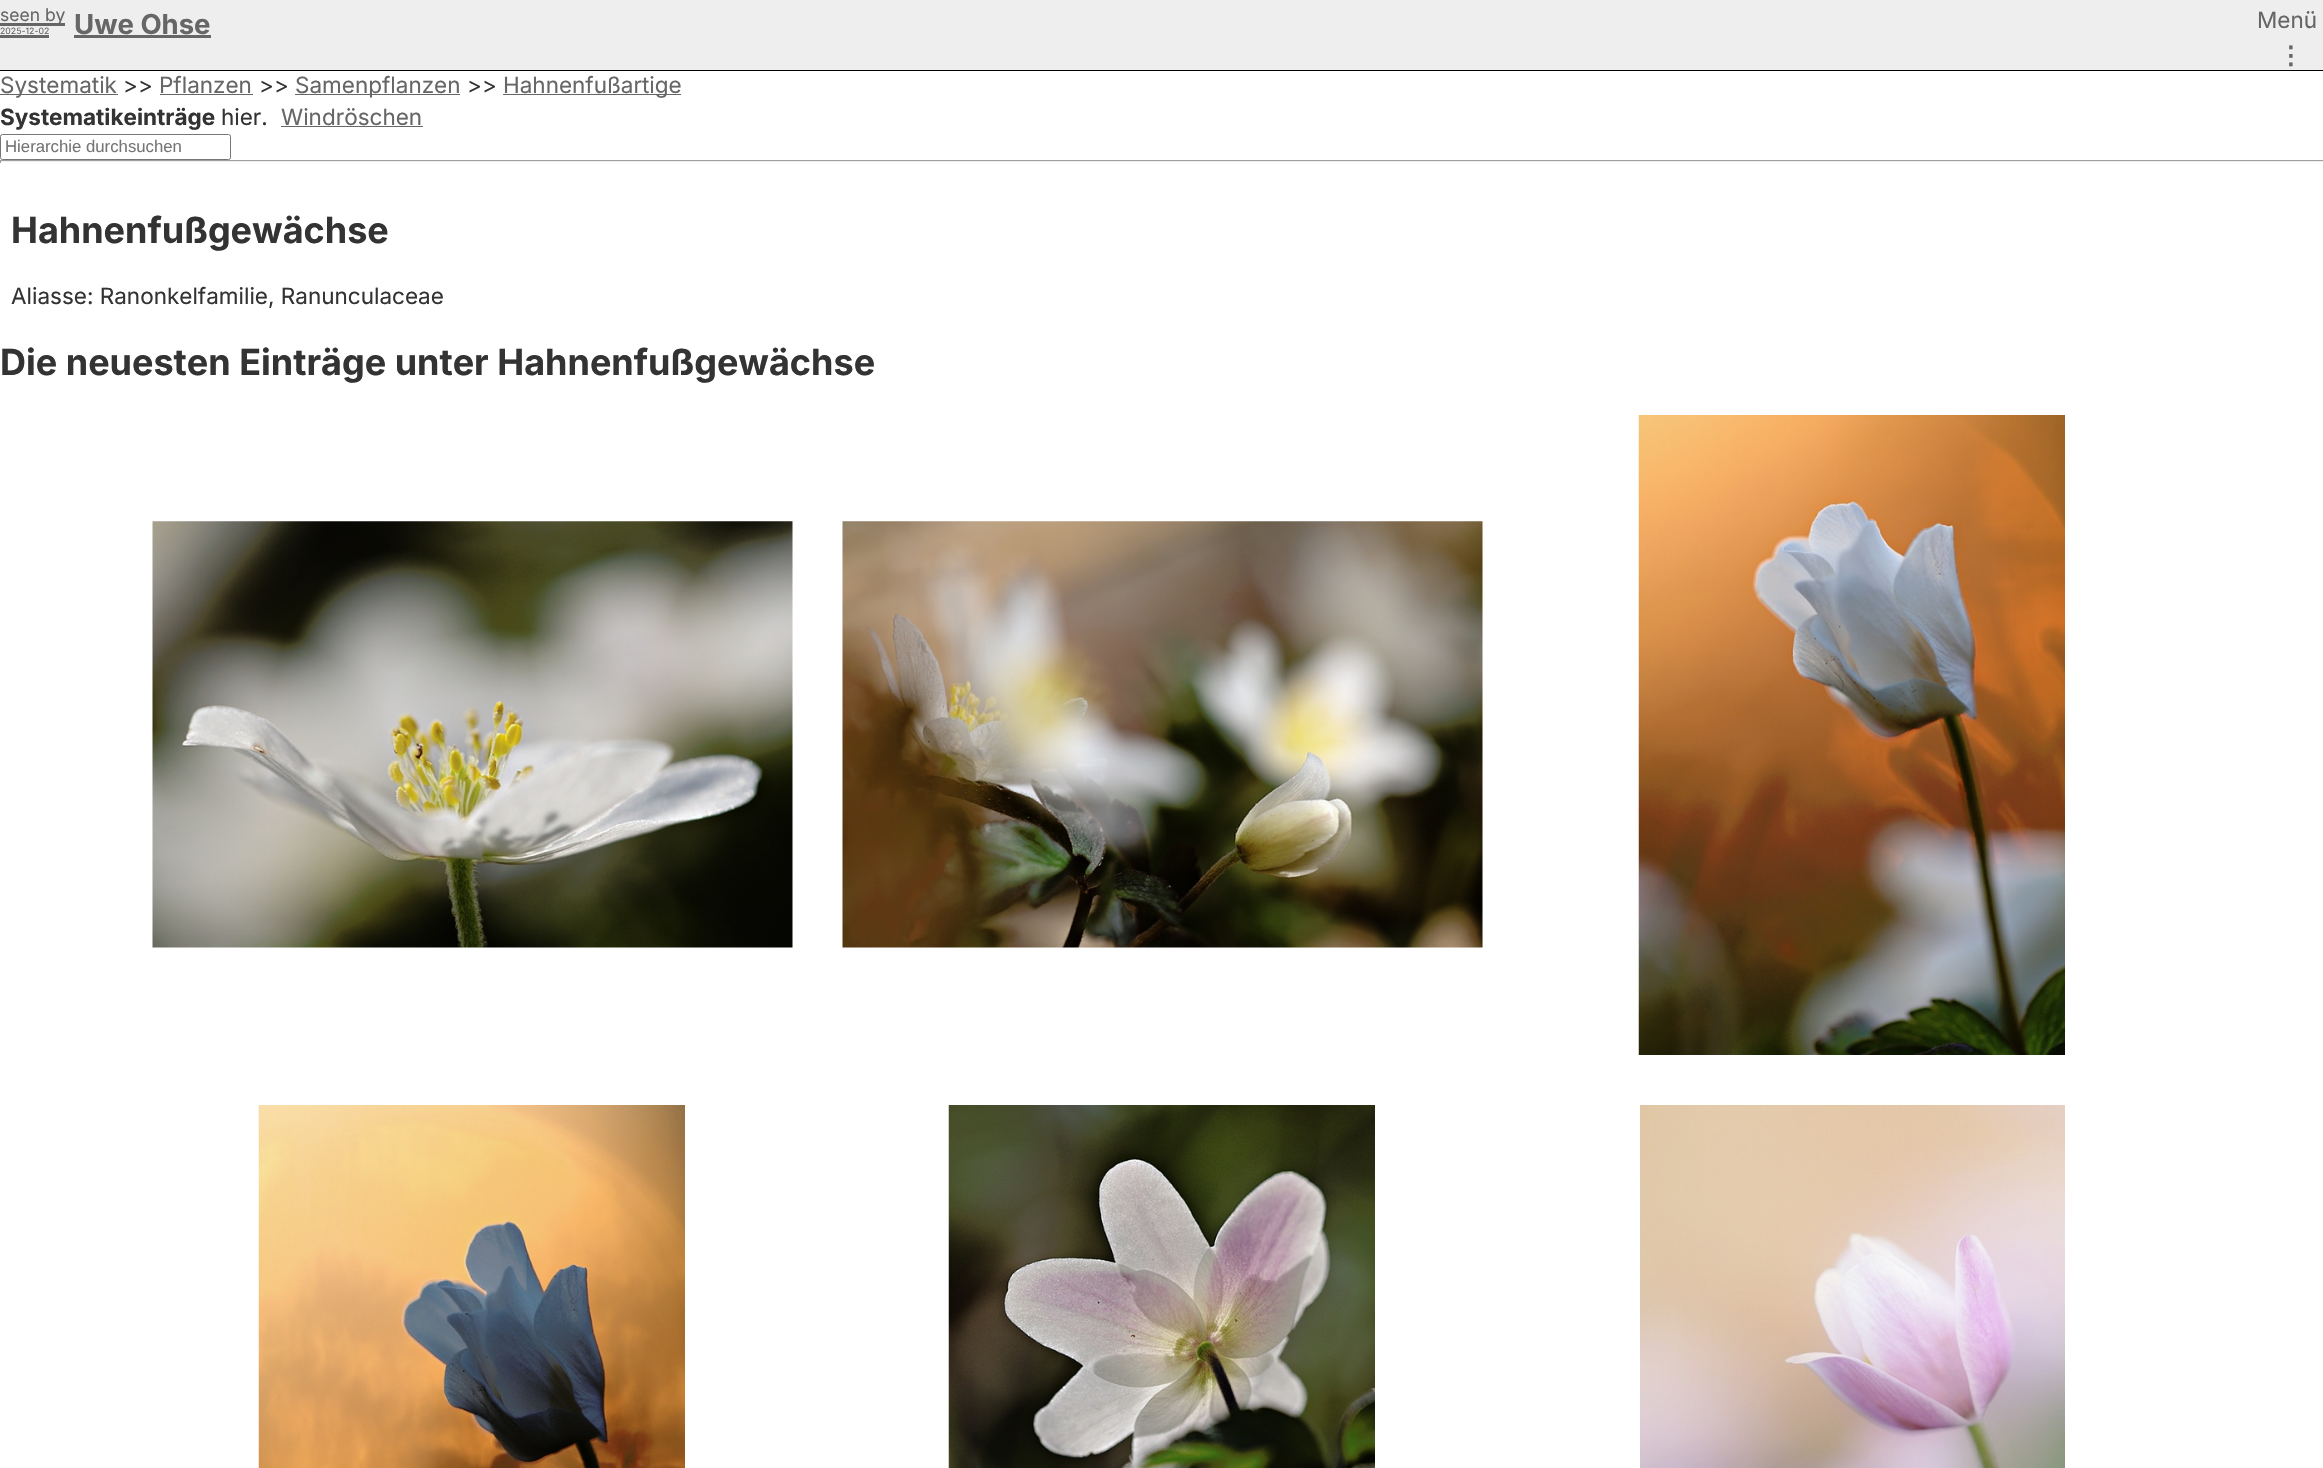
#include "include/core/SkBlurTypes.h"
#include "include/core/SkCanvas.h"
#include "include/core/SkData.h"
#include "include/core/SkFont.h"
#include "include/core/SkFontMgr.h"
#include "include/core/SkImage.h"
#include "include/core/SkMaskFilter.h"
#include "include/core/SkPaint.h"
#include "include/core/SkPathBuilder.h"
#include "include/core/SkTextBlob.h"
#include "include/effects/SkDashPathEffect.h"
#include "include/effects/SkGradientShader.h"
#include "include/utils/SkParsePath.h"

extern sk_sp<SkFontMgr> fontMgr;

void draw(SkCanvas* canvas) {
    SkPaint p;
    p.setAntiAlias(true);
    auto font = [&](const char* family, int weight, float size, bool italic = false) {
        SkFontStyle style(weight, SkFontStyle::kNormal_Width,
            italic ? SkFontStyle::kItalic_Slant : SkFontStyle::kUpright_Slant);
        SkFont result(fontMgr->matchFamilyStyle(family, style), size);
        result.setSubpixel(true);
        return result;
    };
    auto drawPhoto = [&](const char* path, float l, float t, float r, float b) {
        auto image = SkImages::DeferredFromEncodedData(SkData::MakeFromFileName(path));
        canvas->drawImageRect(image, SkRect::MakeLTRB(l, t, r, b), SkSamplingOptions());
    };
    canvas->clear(0xFFFFFFFF);
    {
        const struct { float l, t, r, b; SkColor color; } items[] = {
            {0, 0, 2323, 70, 0xFFEEEEEE},
            {0, 70, 2323, 71, 0xFF000000},
            {0, 23, 65, 26, 0xFF666666},
        };
        for (auto [l, t, r, b, color] : items) {
            p.setColor(color);
            canvas->drawRect(SkRect::MakeLTRB(l, t, r, b), p);
        }
    }
    auto font1 = font("Inter", 400, 17.5f);
    canvas->drawString("seen by", 0, 21, font1, p);
    auto font2 = font("Inter", 700, 27.5f);
    canvas->drawString("Uwe Ohse", 74, 34, font2, p);
    canvas->drawRect(SkRect::MakeLTRB(74, 35, 211, 38), p);
    canvas->drawRect(SkRect::MakeLTRB(0, 35, 49, 38), p);
    auto font3 = font("Inter", 400, 8.75f);
    canvas->drawString("2025-12-02", 0, 34, font3, p);
    auto font4 = font("Inter", 400, 22.5f);
    canvas->drawString("Menü", 2257, 28, font4, p);
    auto font5 = font("DejaVu Sans", 700, 25);
    canvas->drawString("⋮", 2278, 64, font5, p);
    canvas->drawRect(SkRect::MakeLTRB(0, 94, 118, 95), p);
    canvas->drawString("Systematik", 0, 93, font4, p);
    p.setColor(0xFF333333);
    canvas->drawString(">>", 123, 93, font4, p);
    p.setColor(0xFF666666);
    canvas->drawString("Pflanzen", 159, 93, font4, p);
    canvas->drawRect(SkRect::MakeLTRB(160, 94, 253, 95), p);
    p.setColor(0xFF333333);
    canvas->drawString(">>", 259, 93, font4, p);
    p.setColor(0xFF666666);
    canvas->drawRect(SkRect::MakeLTRB(295, 94, 460, 95), p);
    canvas->drawString("Samenpflanzen", 295, 93, font4, p);
    p.setColor(0xFF333333);
    canvas->drawString(">>", 467, 93, font4, p);
    p.setColor(0xFF666666);
    canvas->drawRect(SkRect::MakeLTRB(503, 94, 681, 95), p);
    canvas->drawString("Hahnenfußartige", 503, 93, font4, p);
    auto font6 = font("Inter", 700, 22.5f);
    p.setColor(0xFF333333);
    canvas->drawString("Systematikeinträge", 0, 125, font6, p);
    canvas->drawString("hier.", 221, 125, font4, p);
    p.setStyle(SkPaint::kStroke_Style);
    p.setStrokeWidth(1);
    p.setColor(0xFF767676);
    canvas->drawRoundRect(SkRect::MakeLTRB(0.5f, 134.5f, 230.5f, 159.5f), 2, 2, p);
    auto font7 = font("Liberation Sans", 400, 16.75f);
    p.setStyle(SkPaint::kFill_Style);
    p.setColor(0xFF757575);
    canvas->drawString("Hierarchie durchsuchen", 5, 152, font7, p);
    p.setColor(0xFF666666);
    canvas->drawString("Windröschen", 281, 125, font4, p);
    {
        const struct { float l, t, r, b; SkColor color; } items[] = {
            {281, 126, 423, 127, 0xFF666666},
            {0, 160, 2323, 161, 0xFF9F9F9F},
            {0, 161, 2323, 162, 0xFFEEEEEE},
            {0, 160, 1, 163, 0xFF9F9F9F},
        };
        for (auto [l, t, r, b, color] : items) {
            p.setColor(color);
            canvas->drawRect(SkRect::MakeLTRB(l, t, r, b), p);
        }
    }
    auto font8 = font("Inter", 700, 36);
    p.setColor(0xFF333333);
    canvas->drawString("Hahnenfußgewächse", 11, 243, font8, p);
    canvas->drawString("Aliasse: Ranonkelfamilie, Ranunculaceae", 11, 304, font4, p);
    canvas->drawString("Die neuesten Einträge unter Hahnenfußgewächse", 0, 375, font8, p);
    drawPhoto("media/1.png", 152, 521, 793, 948);
    drawPhoto("media/2.png", 842, 521, 1483, 948);
    drawPhoto("media/3.png", 1638, 415, 2065, 1055);
    drawPhoto("media/4.png", 258, 1105, 685, 1468);
    drawPhoto("media/5.png", 948, 1105, 1375, 1468);
    drawPhoto("media/6.png", 1640, 1105, 2065, 1468);
}
